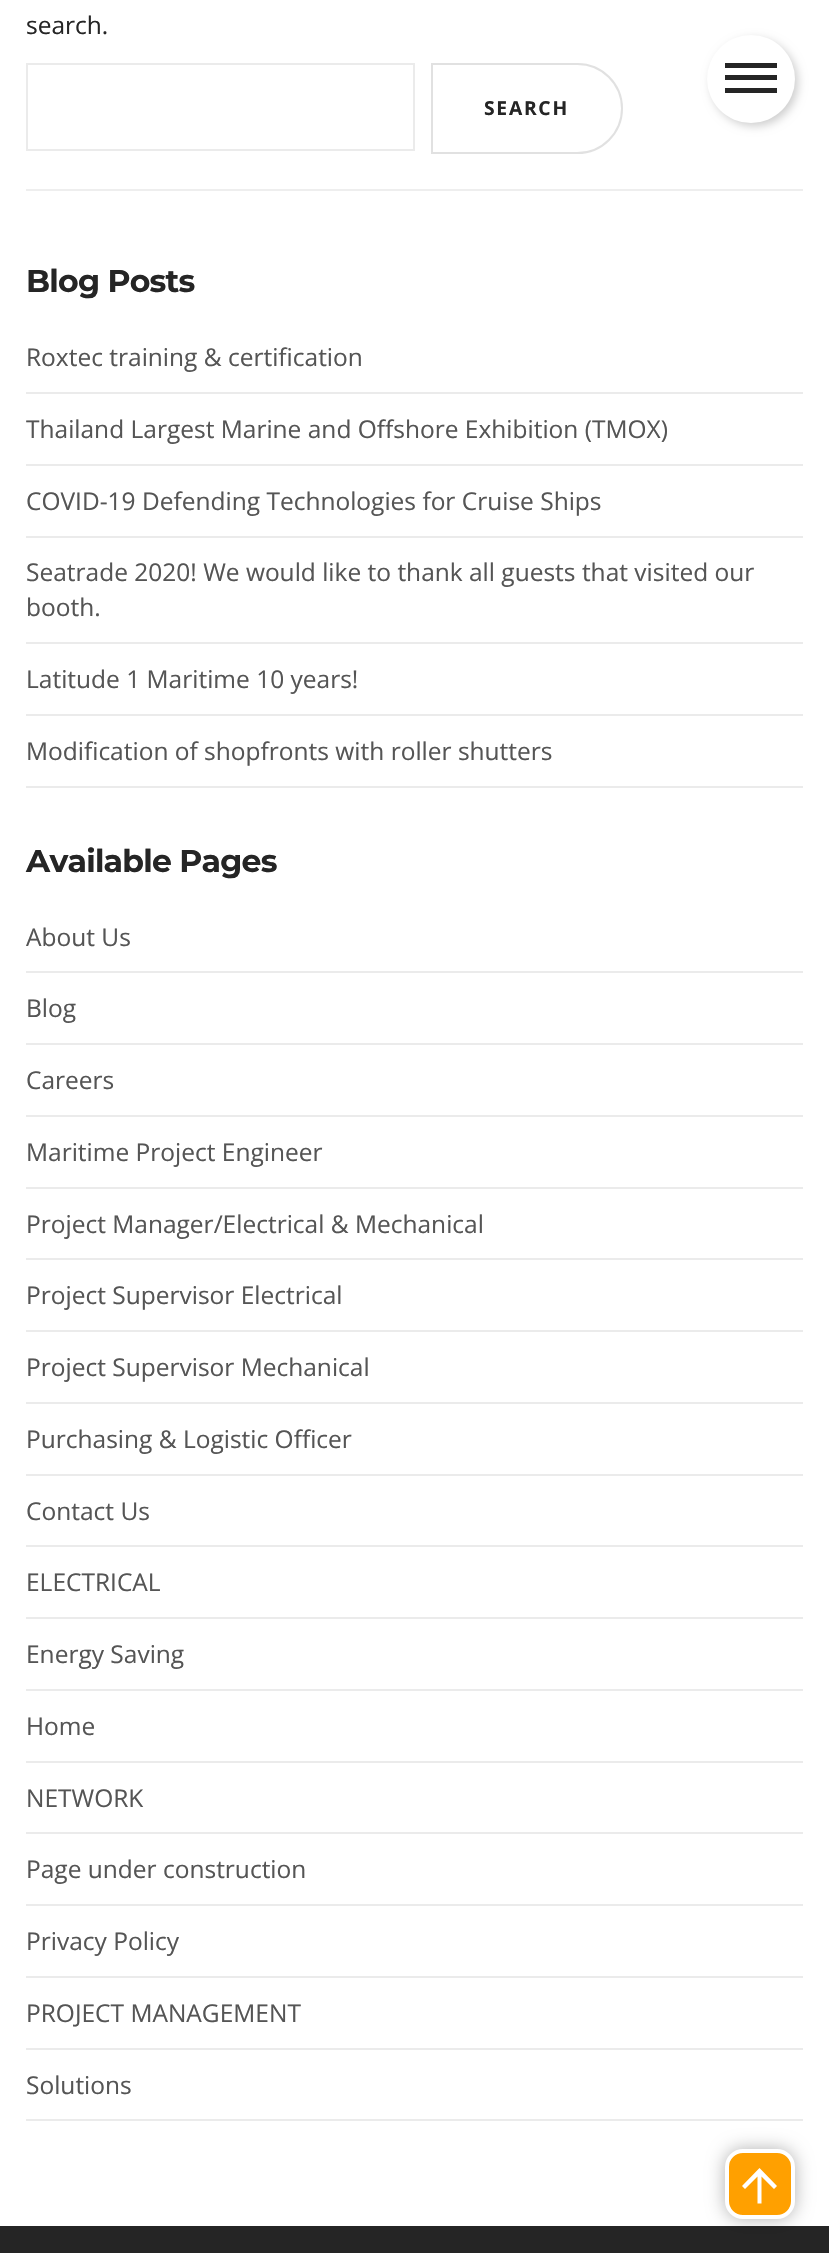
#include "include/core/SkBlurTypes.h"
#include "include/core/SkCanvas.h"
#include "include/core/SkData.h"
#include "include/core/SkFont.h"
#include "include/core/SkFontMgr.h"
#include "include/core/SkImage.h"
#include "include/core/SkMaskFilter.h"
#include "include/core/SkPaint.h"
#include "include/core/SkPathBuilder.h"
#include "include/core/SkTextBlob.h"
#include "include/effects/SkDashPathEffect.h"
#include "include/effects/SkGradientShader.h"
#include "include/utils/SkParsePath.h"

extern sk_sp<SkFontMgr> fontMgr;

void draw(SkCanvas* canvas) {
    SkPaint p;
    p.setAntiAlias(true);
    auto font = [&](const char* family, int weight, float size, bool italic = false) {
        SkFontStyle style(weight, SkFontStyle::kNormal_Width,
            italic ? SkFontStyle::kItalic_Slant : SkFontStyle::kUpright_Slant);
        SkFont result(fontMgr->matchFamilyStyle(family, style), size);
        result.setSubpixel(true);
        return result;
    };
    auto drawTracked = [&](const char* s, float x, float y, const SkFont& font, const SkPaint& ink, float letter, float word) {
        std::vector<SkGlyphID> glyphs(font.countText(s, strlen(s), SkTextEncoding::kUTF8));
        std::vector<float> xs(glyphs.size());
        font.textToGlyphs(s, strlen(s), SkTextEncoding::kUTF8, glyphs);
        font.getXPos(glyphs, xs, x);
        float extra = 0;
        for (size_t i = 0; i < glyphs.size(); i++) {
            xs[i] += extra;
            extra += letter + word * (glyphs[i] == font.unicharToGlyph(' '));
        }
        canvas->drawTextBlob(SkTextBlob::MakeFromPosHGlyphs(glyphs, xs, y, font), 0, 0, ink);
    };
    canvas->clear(0xFFFFFFFF);
    auto font1 = font("Open Sans", 400, 24.5f);
    p.setColor(0xFF252525);
    canvas->drawString("search.", 26, 34, font1, p);
    p.setStyle(SkPaint::kStroke_Style);
    p.setStrokeWidth(2);
    p.setColor(0xFFEBEBEB);
    canvas->drawRect(SkRect::MakeLTRB(27, 64, 414, 150), p);
    p.setColor(0xFFE1E1E1);
    canvas->drawPath(SkPathBuilder().moveTo(432, 64).lineTo(577.5f, 64).cubicTo(602, 64, 622, 84, 622, 108.5f).cubicTo(622, 133, 602, 153, 577.5f, 153).lineTo(432, 153).close().detach(), p);
    auto font2 = font("Open Sans", 700, 19.25f);
    p.setStyle(SkPaint::kFill_Style);
    p.setColor(0xFF252525);
    drawTracked("SEARCH", 484, 115, font2, p, 1.75f, 0);
    p.setColor(0xFFEEEEEE);
    canvas->drawRect(SkRect::MakeLTRB(26, 189, 803, 191), p);
    auto font3 = font("Montserrat", 100, 31.5f);
    p.setColor(0xFF252525);
    drawTracked("Blog Posts", 26, 292, font3, p, -0.75f, 0);
    p.setColor(0xFFEBEBEB);
    canvas->drawRect(SkRect::MakeLTRB(26, 392, 803, 394), p);
    p.setColor(0xFF555555);
    canvas->drawString("Roxtec training & certification", 26, 366, font1, p);
    p.setColor(0xFFEBEBEB);
    canvas->drawRect(SkRect::MakeLTRB(26, 464, 803, 466), p);
    p.setColor(0xFF555555);
    canvas->drawString("Thailand Largest Marine and Offshore Exhibition (TMOX)", 26, 438, font1, p);
    p.setColor(0xFFEBEBEB);
    canvas->drawRect(SkRect::MakeLTRB(26, 536, 803, 538), p);
    p.setColor(0xFF555555);
    canvas->drawString("COVID-19 Defending Technologies for Cruise Ships", 26, 510, font1, p);
    p.setColor(0xFFEBEBEB);
    canvas->drawRect(SkRect::MakeLTRB(26, 642, 803, 644), p);
    p.setColor(0xFF555555);
    canvas->drawString("Seatrade 2020! We would like to thank all guests that visited our", 26, 581, font1, p);
    canvas->drawString("booth.", 26, 616, font1, p);
    p.setColor(0xFFEBEBEB);
    canvas->drawRect(SkRect::MakeLTRB(26, 714, 803, 716), p);
    p.setColor(0xFF555555);
    canvas->drawString("Latitude 1 Maritime 10 years!", 26, 688, font1, p);
    p.setColor(0xFFEBEBEB);
    canvas->drawRect(SkRect::MakeLTRB(26, 786, 803, 788), p);
    p.setColor(0xFF555555);
    canvas->drawString("Modification of shopfronts with roller shutters", 26, 760, font1, p);
    p.setColor(0xFF252525);
    drawTracked("Available Pages", 26, 872, font3, p, -0.75f, 0);
    p.setColor(0xFFEBEBEB);
    canvas->drawRect(SkRect::MakeLTRB(26, 971, 803, 973), p);
    p.setColor(0xFF555555);
    canvas->drawString("About Us", 26, 946, font1, p);
    p.setColor(0xFFEBEBEB);
    canvas->drawRect(SkRect::MakeLTRB(26, 1043, 803, 1045), p);
    p.setColor(0xFF555555);
    canvas->drawString("Blog", 26, 1017, font1, p);
    p.setColor(0xFFEBEBEB);
    canvas->drawRect(SkRect::MakeLTRB(26, 1115, 803, 1117), p);
    p.setColor(0xFF555555);
    canvas->drawString("Careers", 26, 1089, font1, p);
    p.setColor(0xFFEBEBEB);
    canvas->drawRect(SkRect::MakeLTRB(26, 1187, 803, 1189), p);
    p.setColor(0xFF555555);
    canvas->drawString("Maritime Project Engineer", 26, 1161, font1, p);
    p.setColor(0xFFEBEBEB);
    canvas->drawRect(SkRect::MakeLTRB(26, 1258, 803, 1260), p);
    p.setColor(0xFF555555);
    canvas->drawString("Project Manager/Electrical & Mechanical", 26, 1233, font1, p);
    p.setColor(0xFFEBEBEB);
    canvas->drawRect(SkRect::MakeLTRB(26, 1330, 803, 1332), p);
    p.setColor(0xFF555555);
    canvas->drawString("Project Supervisor Electrical", 26, 1304, font1, p);
    p.setColor(0xFFEBEBEB);
    canvas->drawRect(SkRect::MakeLTRB(26, 1402, 803, 1404), p);
    p.setColor(0xFF555555);
    canvas->drawString("Project Supervisor Mechanical", 26, 1376, font1, p);
    p.setColor(0xFFEBEBEB);
    canvas->drawRect(SkRect::MakeLTRB(26, 1474, 803, 1476), p);
    p.setColor(0xFF555555);
    canvas->drawString("Purchasing & Logistic Officer", 26, 1448, font1, p);
    p.setColor(0xFFEBEBEB);
    canvas->drawRect(SkRect::MakeLTRB(26, 1545, 803, 1547), p);
    p.setColor(0xFF555555);
    canvas->drawString("Contact Us", 26, 1520, font1, p);
    p.setColor(0xFFEBEBEB);
    canvas->drawRect(SkRect::MakeLTRB(26, 1617, 803, 1619), p);
    p.setColor(0xFF555555);
    canvas->drawString("ELECTRICAL", 26, 1591, font1, p);
    p.setColor(0xFFEBEBEB);
    canvas->drawRect(SkRect::MakeLTRB(26, 1689, 803, 1691), p);
    p.setColor(0xFF555555);
    canvas->drawString("Energy Saving", 26, 1663, font1, p);
    p.setColor(0xFFEBEBEB);
    canvas->drawRect(SkRect::MakeLTRB(26, 1761, 803, 1763), p);
    p.setColor(0xFF555555);
    canvas->drawString("Home", 26, 1735, font1, p);
    p.setColor(0xFFEBEBEB);
    canvas->drawRect(SkRect::MakeLTRB(26, 1832, 803, 1834), p);
    p.setColor(0xFF555555);
    canvas->drawString("NETWORK", 26, 1807, font1, p);
    p.setColor(0xFFEBEBEB);
    canvas->drawRect(SkRect::MakeLTRB(26, 1904, 803, 1906), p);
    p.setColor(0xFF555555);
    canvas->drawString("Page under construction", 26, 1878, font1, p);
    p.setColor(0xFFEBEBEB);
    canvas->drawRect(SkRect::MakeLTRB(26, 1976, 803, 1978), p);
    p.setColor(0xFF555555);
    canvas->drawString("Privacy Policy", 26, 1950, font1, p);
    p.setColor(0xFFEBEBEB);
    canvas->drawRect(SkRect::MakeLTRB(26, 2048, 803, 2050), p);
    p.setColor(0xFF555555);
    canvas->drawString("PROJECT MANAGEMENT", 26, 2022, font1, p);
    p.setColor(0xFFEBEBEB);
    canvas->drawRect(SkRect::MakeLTRB(26, 2119, 803, 2121), p);
    p.setColor(0xFF555555);
    canvas->drawString("Solutions", 26, 2094, font1, p);
    p.setColor(0xFF252525);
    canvas->drawRect(SkRect::MakeLTRB(0, 2226, 829, 2253), p);
    p.setColor(0x33000000);
    p.setMaskFilter(SkMaskFilter::MakeBlur(kNormal_SkBlurStyle, 5));
    canvas->drawRoundRect(SkRect::MakeLTRB(711, 39, 798, 126), 43.5f, 43.5f, p);
    p.setMaskFilter(nullptr);
    p.setColor(0xFFFFFFFF);
    canvas->drawCircle(751, 79, 44, p);
    {
        const struct { float l, t, r, b; SkColor color; } items[] = {
            {725, 75, 777, 80, 0xFF252525},
            {725, 63, 777, 68, 0xFF252525},
            {725, 88, 777, 93, 0xFF252525},
        };
        for (auto [l, t, r, b, color] : items) {
            p.setColor(color);
            canvas->drawRect(SkRect::MakeLTRB(l, t, r, b), p);
        }
    }
    p.setColor(0x4D000000);
    p.setMaskFilter(SkMaskFilter::MakeBlur(kNormal_SkBlurStyle, 9));
    canvas->drawRoundRect(SkRect::MakeLTRB(725, 2149, 795, 2219), 18, 18, p);
    p.setMaskFilter(nullptr);
    p.setColor(0xFFFFA000);
    canvas->drawRoundRect(SkRect::MakeLTRB(727, 2151, 793, 2217), 16, 16, p);
    p.setStyle(SkPaint::kStroke_Style);
    p.setStrokeWidth(4);
    p.setColor(0xFFFFFFFF);
    canvas->drawRoundRect(SkRect::MakeLTRB(727, 2151, 793, 2217), 16, 16, p);
    p.setStyle(SkPaint::kFill_Style);
    canvas->drawPath(SkPathBuilder().moveTo(742, 2186).lineTo(759.5f, 2168).lineTo(777, 2186).lineTo(774, 2189).lineTo(761.5f, 2176.5f).lineTo(761.5f, 2203.5f).lineTo(757.5f, 2203.5f).lineTo(757.5f, 2176.5f).lineTo(745, 2189).close().detach(), p);
}
